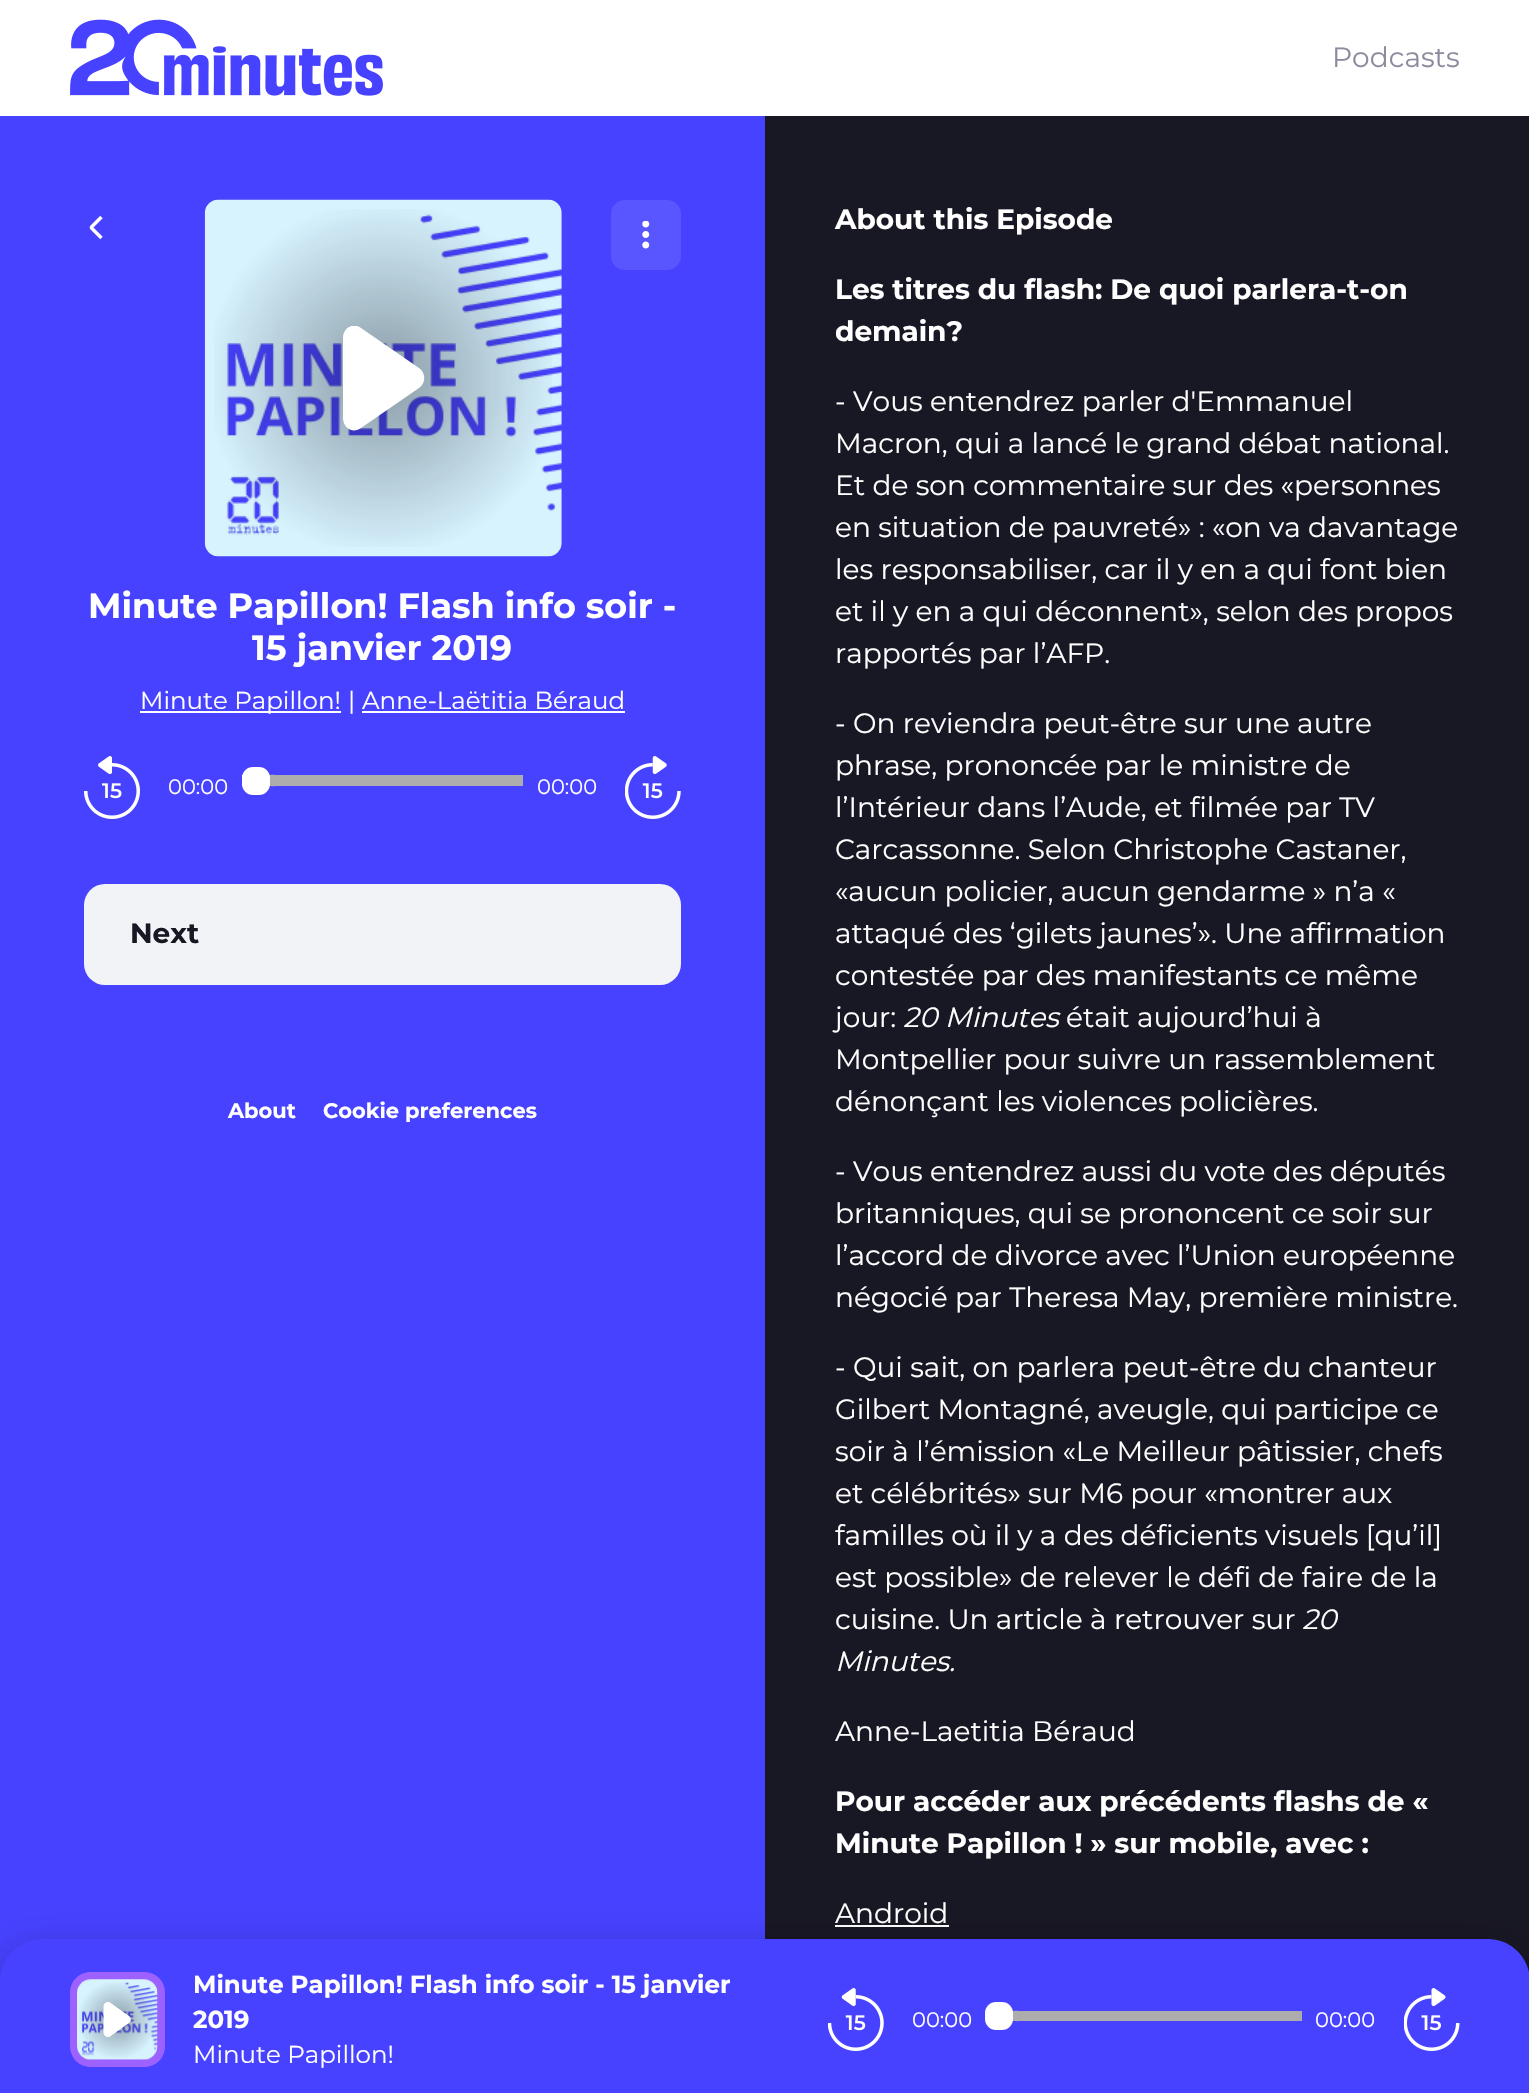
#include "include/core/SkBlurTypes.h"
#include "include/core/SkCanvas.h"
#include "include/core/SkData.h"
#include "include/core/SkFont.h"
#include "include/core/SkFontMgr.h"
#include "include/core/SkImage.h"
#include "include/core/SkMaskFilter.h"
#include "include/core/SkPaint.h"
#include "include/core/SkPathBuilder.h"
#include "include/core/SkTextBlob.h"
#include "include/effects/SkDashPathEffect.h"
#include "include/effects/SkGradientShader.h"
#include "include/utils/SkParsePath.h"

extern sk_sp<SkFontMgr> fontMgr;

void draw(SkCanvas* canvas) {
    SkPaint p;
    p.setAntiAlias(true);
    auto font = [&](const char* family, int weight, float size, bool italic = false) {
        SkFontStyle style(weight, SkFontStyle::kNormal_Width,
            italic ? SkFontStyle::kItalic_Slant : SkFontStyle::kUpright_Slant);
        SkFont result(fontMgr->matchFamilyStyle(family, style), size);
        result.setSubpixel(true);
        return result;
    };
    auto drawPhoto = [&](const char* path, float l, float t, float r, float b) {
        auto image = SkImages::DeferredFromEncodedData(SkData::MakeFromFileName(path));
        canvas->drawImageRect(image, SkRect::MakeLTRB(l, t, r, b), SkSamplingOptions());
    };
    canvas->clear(0xFFFFFFFF);
    drawPhoto("media/1.png", 70, 19, 383, 96);
    auto font1 = font("Montserrat", 400, 28);
    p.setColor(0xFF8D8A9E);
    canvas->drawString("Podcasts", 1332, 67, font1, p);
    p.setColor(0xFF4742FF);
    canvas->drawRect(SkRect::MakeLTRB(0, 116, 765, 1981), p);
    drawPhoto("media/2.png", 204, 199, 562, 557);
    {
        const SkColor colors[] = {0x66181724, 0x00181724};
        const float stops[] = {0, 1};
        p.setShader(SkGradientShader::MakeRadial({383, 378}, 179, colors, stops, 2, SkTileMode::kClamp));
        p.setAlpha(255);
    }
    canvas->drawRect(SkRect::MakeLTRB(214, 209, 552, 547), p);
    canvas->save();
    canvas->clipRect(SkRect::MakeLTRB(331, 326, 436, 431));
    p.setShader(nullptr);
    p.setColor(0xFFFFFFFF);
    canvas->drawPath(SkPathBuilder().moveTo(343, 418).lineTo(343, 338).cubicTo(343, 328, 353, 322, 361, 328).lineTo(419, 368).cubicTo(426, 373, 426, 383, 419, 388).lineTo(361, 428).cubicTo(353, 434, 343, 428, 343, 418).close().detach(), p);
    canvas->restore();
    p.setStyle(SkPaint::kStroke_Style);
    p.setStrokeWidth(3.5f);
    canvas->drawPath(SkPathBuilder().moveTo(101.5f, 217).lineTo(92, 226.5f).cubicTo(91.5f, 227, 91.5f, 228, 92, 228.5f).lineTo(101.5f, 238).detach(), p);
    p.setStyle(SkPaint::kFill_Style);
    p.setColor(0xFF5955FF);
    canvas->drawRoundRect(SkRect::MakeLTRB(611, 200, 681, 270), 14, 14, p);
    drawPhoto("media/3.png", 642, 221, 650, 249);
    auto font2 = font("Montserrat", 700, 35);
    p.setColor(0xFFFFFFFF);
    canvas->drawString("Minute Papillon! Flash info soir -", 88, 618, font2, p);
    canvas->drawString("15 janvier 2019", 252, 660, font2, p);
    canvas->drawRect(SkRect::MakeLTRB(140, 711, 341, 713), p);
    auto font3 = font("Montserrat", 400, 24.5f);
    {
        const struct { const char* s; float x, y; } items[] = {
            {"Minute Papillon!", 140, 709},
            {"|", 348, 709},
            {"Anne-Laëtitia Béraud", 362, 709},
        };
        for (auto [s, x, y] : items) {
            canvas->drawString(s, x, y, font3, p);
        }
    }
    canvas->drawRect(SkRect::MakeLTRB(362, 711, 625, 713), p);
    drawPhoto("media/4.png", 84, 756, 140, 819);
    auto font4 = font("Montserrat", 400, 21);
    canvas->drawString("00:00", 168, 794, font4, p);
    canvas->drawRect(SkRect::MakeLTRB(242, 775, 270, 786), p);
    p.setColor(0xFFADADAD);
    canvas->drawRect(SkRect::MakeLTRB(521, 775, 523, 786), p);
    canvas->drawRoundRect(SkRect::MakeLTRB(513, 775, 523, 786), 2, 2, p);
    canvas->drawRoundRect(SkRect::MakeLTRB(511, 775, 522, 786), 2, 2, p);
    canvas->drawRoundRect(SkRect::MakeLTRB(509, 775, 520, 786), 2, 2, p);
    canvas->drawRoundRect(SkRect::MakeLTRB(508, 775, 518, 786), 2, 2, p);
    canvas->drawRoundRect(SkRect::MakeLTRB(506, 775, 516, 786), 2, 2, p);
    canvas->drawRoundRect(SkRect::MakeLTRB(504, 775, 515, 786), 2, 2, p);
    canvas->drawRoundRect(SkRect::MakeLTRB(502, 775, 513, 786), 2, 2, p);
    canvas->drawRoundRect(SkRect::MakeLTRB(501, 775, 511, 786), 2, 2, p);
    canvas->drawRoundRect(SkRect::MakeLTRB(499, 775, 509, 786), 2, 2, p);
    canvas->drawRoundRect(SkRect::MakeLTRB(497, 775, 508, 786), 2, 2, p);
    canvas->drawRoundRect(SkRect::MakeLTRB(495, 775, 506, 786), 2, 2, p);
    canvas->drawRoundRect(SkRect::MakeLTRB(494, 775, 504, 786), 2, 2, p);
    canvas->drawRoundRect(SkRect::MakeLTRB(492, 775, 502, 786), 2, 2, p);
    canvas->drawRoundRect(SkRect::MakeLTRB(490, 775, 501, 786), 2, 2, p);
    canvas->drawRoundRect(SkRect::MakeLTRB(488, 775, 499, 786), 2, 2, p);
    canvas->drawRoundRect(SkRect::MakeLTRB(487, 775, 497, 786), 2, 2, p);
    canvas->drawRoundRect(SkRect::MakeLTRB(485, 775, 495, 786), 2, 2, p);
    canvas->drawRoundRect(SkRect::MakeLTRB(483, 775, 494, 786), 2, 2, p);
    canvas->drawRoundRect(SkRect::MakeLTRB(481, 775, 492, 786), 2, 2, p);
    canvas->drawRoundRect(SkRect::MakeLTRB(480, 775, 490, 786), 2, 2, p);
    canvas->drawRoundRect(SkRect::MakeLTRB(478, 775, 488, 786), 2, 2, p);
    canvas->drawRoundRect(SkRect::MakeLTRB(476, 775, 487, 786), 2, 2, p);
    canvas->drawRoundRect(SkRect::MakeLTRB(474, 775, 485, 786), 2, 2, p);
    canvas->drawRoundRect(SkRect::MakeLTRB(473, 775, 483, 786), 2, 2, p);
    canvas->drawRoundRect(SkRect::MakeLTRB(471, 775, 481, 786), 2, 2, p);
    canvas->drawRoundRect(SkRect::MakeLTRB(469, 775, 480, 786), 2, 2, p);
    canvas->drawRoundRect(SkRect::MakeLTRB(467, 775, 478, 786), 2, 2, p);
    canvas->drawRoundRect(SkRect::MakeLTRB(466, 775, 476, 786), 2, 2, p);
    canvas->drawRoundRect(SkRect::MakeLTRB(464, 775, 474, 786), 2, 2, p);
    canvas->drawRoundRect(SkRect::MakeLTRB(462, 775, 473, 786), 2, 2, p);
    canvas->drawRoundRect(SkRect::MakeLTRB(460, 775, 471, 786), 2, 2, p);
    canvas->drawRoundRect(SkRect::MakeLTRB(459, 775, 469, 786), 2, 2, p);
    canvas->drawRoundRect(SkRect::MakeLTRB(457, 775, 467, 786), 2, 2, p);
    canvas->drawRoundRect(SkRect::MakeLTRB(455, 775, 466, 786), 2, 2, p);
    canvas->drawRoundRect(SkRect::MakeLTRB(453, 775, 464, 786), 2, 2, p);
    canvas->drawRoundRect(SkRect::MakeLTRB(452, 775, 462, 786), 2, 2, p);
    canvas->drawRoundRect(SkRect::MakeLTRB(450, 775, 460, 786), 2, 2, p);
    canvas->drawRoundRect(SkRect::MakeLTRB(448, 775, 459, 786), 2, 2, p);
    canvas->drawRoundRect(SkRect::MakeLTRB(446, 775, 457, 786), 2, 2, p);
    canvas->drawRoundRect(SkRect::MakeLTRB(445, 775, 455, 786), 2, 2, p);
    canvas->drawRoundRect(SkRect::MakeLTRB(443, 775, 453, 786), 2, 2, p);
    canvas->drawRoundRect(SkRect::MakeLTRB(441, 775, 452, 786), 2, 2, p);
    canvas->drawRoundRect(SkRect::MakeLTRB(439, 775, 450, 786), 2, 2, p);
    canvas->drawRoundRect(SkRect::MakeLTRB(438, 775, 448, 786), 2, 2, p);
    canvas->drawRoundRect(SkRect::MakeLTRB(436, 775, 446, 786), 2, 2, p);
    canvas->drawRoundRect(SkRect::MakeLTRB(434, 775, 445, 786), 2, 2, p);
    canvas->drawRoundRect(SkRect::MakeLTRB(432, 775, 443, 786), 2, 2, p);
    canvas->drawRoundRect(SkRect::MakeLTRB(431, 775, 441, 786), 2, 2, p);
    canvas->drawRoundRect(SkRect::MakeLTRB(429, 775, 439, 786), 2, 2, p);
    canvas->drawRoundRect(SkRect::MakeLTRB(427, 775, 438, 786), 2, 2, p);
    canvas->drawRoundRect(SkRect::MakeLTRB(425, 775, 436, 786), 2, 2, p);
    canvas->drawRoundRect(SkRect::MakeLTRB(424, 775, 434, 786), 2, 2, p);
    canvas->drawRoundRect(SkRect::MakeLTRB(422, 775, 432, 786), 2, 2, p);
    canvas->drawRoundRect(SkRect::MakeLTRB(420, 775, 431, 786), 2, 2, p);
    canvas->drawRoundRect(SkRect::MakeLTRB(418, 775, 429, 786), 2, 2, p);
    canvas->drawRoundRect(SkRect::MakeLTRB(417, 775, 427, 786), 2, 2, p);
    canvas->drawRoundRect(SkRect::MakeLTRB(415, 775, 425, 786), 2, 2, p);
    canvas->drawRoundRect(SkRect::MakeLTRB(413, 775, 424, 786), 2, 2, p);
    canvas->drawRoundRect(SkRect::MakeLTRB(411, 775, 422, 786), 2, 2, p);
    canvas->drawRoundRect(SkRect::MakeLTRB(410, 775, 420, 786), 2, 2, p);
    canvas->drawRoundRect(SkRect::MakeLTRB(408, 775, 418, 786), 2, 2, p);
    canvas->drawRoundRect(SkRect::MakeLTRB(406, 775, 417, 786), 2, 2, p);
    canvas->drawRoundRect(SkRect::MakeLTRB(404, 775, 415, 786), 2, 2, p);
    canvas->drawRoundRect(SkRect::MakeLTRB(403, 775, 413, 786), 2, 2, p);
    canvas->drawRoundRect(SkRect::MakeLTRB(401, 775, 411, 786), 2, 2, p);
    canvas->drawRoundRect(SkRect::MakeLTRB(399, 775, 410, 786), 2, 2, p);
    canvas->drawRoundRect(SkRect::MakeLTRB(397, 775, 408, 786), 2, 2, p);
    canvas->drawRoundRect(SkRect::MakeLTRB(396, 775, 406, 786), 2, 2, p);
    canvas->drawRoundRect(SkRect::MakeLTRB(394, 775, 404, 786), 2, 2, p);
    canvas->drawRoundRect(SkRect::MakeLTRB(392, 775, 403, 786), 2, 2, p);
    canvas->drawRoundRect(SkRect::MakeLTRB(390, 775, 401, 786), 2, 2, p);
    canvas->drawRoundRect(SkRect::MakeLTRB(389, 775, 399, 786), 2, 2, p);
    canvas->drawRoundRect(SkRect::MakeLTRB(387, 775, 397, 786), 2, 2, p);
    canvas->drawRoundRect(SkRect::MakeLTRB(385, 775, 396, 786), 2, 2, p);
    canvas->drawRoundRect(SkRect::MakeLTRB(383, 775, 394, 786), 2, 2, p);
    canvas->drawRoundRect(SkRect::MakeLTRB(382, 775, 392, 786), 2, 2, p);
    canvas->drawRoundRect(SkRect::MakeLTRB(380, 775, 390, 786), 2, 2, p);
    canvas->drawRoundRect(SkRect::MakeLTRB(378, 775, 389, 786), 2, 2, p);
    canvas->drawRoundRect(SkRect::MakeLTRB(376, 775, 387, 786), 2, 2, p);
    canvas->drawRoundRect(SkRect::MakeLTRB(375, 775, 385, 786), 2, 2, p);
    canvas->drawRoundRect(SkRect::MakeLTRB(373, 775, 383, 786), 2, 2, p);
    canvas->drawRoundRect(SkRect::MakeLTRB(371, 775, 382, 786), 2, 2, p);
    canvas->drawRoundRect(SkRect::MakeLTRB(369, 775, 380, 786), 2, 2, p);
    canvas->drawRoundRect(SkRect::MakeLTRB(368, 775, 378, 786), 2, 2, p);
    canvas->drawRoundRect(SkRect::MakeLTRB(366, 775, 376, 786), 2, 2, p);
    canvas->drawRoundRect(SkRect::MakeLTRB(364, 775, 375, 786), 2, 2, p);
    canvas->drawRoundRect(SkRect::MakeLTRB(362, 775, 373, 786), 2, 2, p);
    canvas->drawRoundRect(SkRect::MakeLTRB(361, 775, 371, 786), 2, 2, p);
    canvas->drawRoundRect(SkRect::MakeLTRB(359, 775, 369, 786), 2, 2, p);
    canvas->drawRoundRect(SkRect::MakeLTRB(357, 775, 368, 786), 2, 2, p);
    canvas->drawRoundRect(SkRect::MakeLTRB(355, 775, 366, 786), 2, 2, p);
    canvas->drawRoundRect(SkRect::MakeLTRB(354, 775, 364, 786), 2, 2, p);
    canvas->drawRoundRect(SkRect::MakeLTRB(352, 775, 362, 786), 2, 2, p);
    canvas->drawRoundRect(SkRect::MakeLTRB(350, 775, 361, 786), 2, 2, p);
    canvas->drawRoundRect(SkRect::MakeLTRB(348, 775, 359, 786), 2, 2, p);
    canvas->drawRoundRect(SkRect::MakeLTRB(347, 775, 357, 786), 2, 2, p);
    canvas->drawRoundRect(SkRect::MakeLTRB(345, 775, 355, 786), 2, 2, p);
    canvas->drawRoundRect(SkRect::MakeLTRB(343, 775, 354, 786), 2, 2, p);
    canvas->drawRoundRect(SkRect::MakeLTRB(341, 775, 352, 786), 2, 2, p);
    canvas->drawRoundRect(SkRect::MakeLTRB(340, 775, 350, 786), 2, 2, p);
    canvas->drawRoundRect(SkRect::MakeLTRB(338, 775, 348, 786), 2, 2, p);
    canvas->drawRoundRect(SkRect::MakeLTRB(336, 775, 347, 786), 2, 2, p);
    canvas->drawRoundRect(SkRect::MakeLTRB(334, 775, 345, 786), 2, 2, p);
    canvas->drawRoundRect(SkRect::MakeLTRB(333, 775, 343, 786), 2, 2, p);
    canvas->drawRoundRect(SkRect::MakeLTRB(331, 775, 341, 786), 2, 2, p);
    canvas->drawRoundRect(SkRect::MakeLTRB(329, 775, 340, 786), 2, 2, p);
    canvas->drawRoundRect(SkRect::MakeLTRB(327, 775, 338, 786), 2, 2, p);
    canvas->drawRoundRect(SkRect::MakeLTRB(326, 775, 336, 786), 2, 2, p);
    canvas->drawRoundRect(SkRect::MakeLTRB(324, 775, 334, 786), 2, 2, p);
    canvas->drawRoundRect(SkRect::MakeLTRB(322, 775, 333, 786), 2, 2, p);
    canvas->drawRoundRect(SkRect::MakeLTRB(320, 775, 331, 786), 2, 2, p);
    canvas->drawRoundRect(SkRect::MakeLTRB(319, 775, 329, 786), 2, 2, p);
    canvas->drawRoundRect(SkRect::MakeLTRB(317, 775, 327, 786), 2, 2, p);
    canvas->drawRoundRect(SkRect::MakeLTRB(315, 775, 326, 786), 2, 2, p);
    canvas->drawRoundRect(SkRect::MakeLTRB(313, 775, 324, 786), 2, 2, p);
    canvas->drawRoundRect(SkRect::MakeLTRB(312, 775, 322, 786), 2, 2, p);
    canvas->drawRoundRect(SkRect::MakeLTRB(310, 775, 320, 786), 2, 2, p);
    canvas->drawRoundRect(SkRect::MakeLTRB(308, 775, 319, 786), 2, 2, p);
    canvas->drawRoundRect(SkRect::MakeLTRB(306, 775, 317, 786), 2, 2, p);
    canvas->drawRoundRect(SkRect::MakeLTRB(305, 775, 315, 786), 2, 2, p);
    canvas->drawRoundRect(SkRect::MakeLTRB(303, 775, 313, 786), 2, 2, p);
    canvas->drawRoundRect(SkRect::MakeLTRB(301, 775, 312, 786), 2, 2, p);
    canvas->drawRoundRect(SkRect::MakeLTRB(299, 775, 310, 786), 2, 2, p);
    canvas->drawRoundRect(SkRect::MakeLTRB(298, 775, 308, 786), 2, 2, p);
    canvas->drawRoundRect(SkRect::MakeLTRB(296, 775, 306, 786), 2, 2, p);
    canvas->drawRoundRect(SkRect::MakeLTRB(294, 775, 305, 786), 2, 2, p);
    canvas->drawRoundRect(SkRect::MakeLTRB(292, 775, 303, 786), 2, 2, p);
    canvas->drawRoundRect(SkRect::MakeLTRB(291, 775, 301, 786), 2, 2, p);
    canvas->drawRoundRect(SkRect::MakeLTRB(289, 775, 299, 786), 2, 2, p);
    canvas->drawRoundRect(SkRect::MakeLTRB(287, 775, 298, 786), 2, 2, p);
    canvas->drawRoundRect(SkRect::MakeLTRB(285, 775, 296, 786), 2, 2, p);
    canvas->drawRoundRect(SkRect::MakeLTRB(284, 775, 294, 786), 2, 2, p);
    canvas->drawRoundRect(SkRect::MakeLTRB(282, 775, 292, 786), 2, 2, p);
    canvas->drawRoundRect(SkRect::MakeLTRB(280, 775, 291, 786), 2, 2, p);
    canvas->drawRoundRect(SkRect::MakeLTRB(278, 775, 289, 786), 2, 2, p);
    canvas->drawRoundRect(SkRect::MakeLTRB(277, 775, 287, 786), 2, 2, p);
    canvas->drawRoundRect(SkRect::MakeLTRB(275, 775, 285, 786), 2, 2, p);
    canvas->drawRoundRect(SkRect::MakeLTRB(273, 775, 284, 786), 2, 2, p);
    canvas->drawRoundRect(SkRect::MakeLTRB(271, 775, 282, 786), 2, 2, p);
    canvas->drawRoundRect(SkRect::MakeLTRB(270, 775, 280, 786), 2, 2, p);
    canvas->drawPath(SkPathBuilder().moveTo(270, 775).lineTo(269.5f, 775).lineTo(269.5f, 786).lineTo(273, 786).cubicTo(278.5f, 786, 278, 786, 278, 780.5f).cubicTo(278, 779, 278.5f, 775, 276, 775).close().detach(), p);
    canvas->drawPath(SkPathBuilder().moveTo(269.5f, 786).cubicTo(271, 786, 276.5f, 787, 277, 784.5f).lineTo(277, 776.5f).cubicTo(276.5f, 774, 271, 775, 269.5f, 775).close().detach(), p);
    canvas->drawPath(SkPathBuilder().moveTo(269.5f, 786).cubicTo(275, 786, 275, 786.5f, 275, 780.5f).cubicTo(275, 774.5f, 275, 775, 269.5f, 775).close().detach(), p);
    canvas->drawPath(SkPathBuilder().moveTo(269.5f, 786).cubicTo(273.5f, 786, 273, 784.5f, 273, 780.5f).cubicTo(273, 776.5f, 273.5f, 775, 269.5f, 775).close().detach(), p);
    p.setColor(0xFFFFFFFF);
    canvas->drawRoundRect(SkRect::MakeLTRB(242, 767, 270, 795), 11, 11, p);
    canvas->drawString("00:00", 537, 794, font4, p);
    drawPhoto("media/5.png", 625, 756, 681, 819);
    p.setColor(0xFFF2F3F6);
    canvas->drawRoundRect(SkRect::MakeLTRB(84, 884, 681, 985), 21, 21, p);
    auto font5 = font("Montserrat", 700, 28);
    p.setColor(0xFF181724);
    canvas->drawString("Next", 130, 943, font5, p);
    auto font6 = font("Montserrat", 700, 21);
    p.setColor(0xFFFFFFFF);
    canvas->drawString("About", 228, 1118, font6, p);
    canvas->drawString("Cookie preferences", 323, 1118, font6, p);
    p.setColor(0xFF181724);
    canvas->drawRect(SkRect::MakeLTRB(765, 116, 1529, 1972), p);
    p.setColor(0xFFFFFFFF);
    {
        const struct { const char* s; float x, y; } items[] = {
            {"About this Episode", 835, 229},
            {"Les titres du flash: De quoi parlera-t-on", 835, 299},
            {"demain?", 835, 341},
        };
        for (auto [s, x, y] : items) {
            canvas->drawString(s, x, y, font5, p);
        }
    }
    {
        const struct { const char* s; float x, y; } items[] = {
            {"- Vous entendrez parler d'Emmanuel", 835, 411},
            {"Macron, qui a lancé le grand débat national.", 835, 453},
            {"Et de son commentaire sur des «personnes", 835, 495},
            {"en situation de pauvreté» : «on va davantage", 835, 537},
            {"les responsabiliser, car il y en a qui font bien", 835, 579},
            {"et il y en a qui déconnent», selon des propos", 835, 621},
            {"rapportés par l’AFP.", 835, 663},
            {"- On reviendra peut-être sur une autre", 835, 733},
            {"phrase, prononcée par le ministre de", 835, 775},
            {"l’Intérieur dans l’Aude, et filmée par TV", 835, 817},
            {"Carcassonne. Selon Christophe Castaner,", 835, 859},
            {"«aucun policier, aucun gendarme » n’a «", 835, 901},
            {"attaqué des ‘gilets jaunes’». Une affirmation", 835, 943},
            {"contestée par des manifestants ce même", 835, 985},
            {"jour:", 835, 1027},
        };
        for (auto [s, x, y] : items) {
            canvas->drawString(s, x, y, font1, p);
        }
    }
    auto font7 = font("Montserrat", 400, 28, true);
    canvas->drawString("20 Minutes", 903, 1027, font7, p);
    {
        const struct { const char* s; float x, y; } items[] = {
            {"était aujourd’hui à", 1066, 1027},
            {"Montpellier pour suivre un rassemblement", 835, 1069},
            {"dénonçant les violences policières.", 835, 1111},
            {"- Vous entendrez aussi du vote des députés", 835, 1181},
            {"britanniques, qui se prononcent ce soir sur", 835, 1223},
            {"l’accord de divorce avec l’Union européenne", 835, 1265},
            {"négocié par Theresa May, première ministre.", 835, 1307},
            {"- Qui sait, on parlera peut-être du chanteur", 835, 1377},
            {"Gilbert Montagné, aveugle, qui participe ce", 835, 1419},
            {"soir à l’émission «Le Meilleur pâtissier, chefs", 835, 1461},
            {"et célébrités» sur M6 pour «montrer aux", 835, 1503},
            {"familles où il y a des déficients visuels [qu’il]", 835, 1545},
            {"est possible» de relever le défi de faire de la", 835, 1587},
            {"cuisine. Un article à retrouver sur", 835, 1629},
        };
        for (auto [s, x, y] : items) {
            canvas->drawString(s, x, y, font1, p);
        }
    }
    canvas->drawString("20", 1302, 1629, font7, p);
    canvas->drawString("Minutes.", 835, 1671, font7, p);
    canvas->drawString("Anne-Laetitia Béraud", 835, 1741, font1, p);
    canvas->drawString("Pour accéder aux précédents flashs de «", 835, 1811, font5, p);
    canvas->drawString("Minute Papillon ! » sur mobile, avec :", 835, 1853, font5, p);
    canvas->drawString("Android", 835, 1923, font1, p);
    canvas->drawRect(SkRect::MakeLTRB(835, 1925, 949, 1927), p);
    p.setColor(0xFF4742FF);
    canvas->drawPath(SkPathBuilder().moveTo(42, 1939).lineTo(1488, 1939).cubicTo(1511, 1939, 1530, 1958, 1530, 1981).lineTo(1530, 2093).lineTo(0, 2093).lineTo(0, 1981).cubicTo(0, 1958, 19, 1939, 42, 1939).close().detach(), p);
    canvas->save();
    canvas->clipPath(SkPathBuilder(SkPathFillType::kEvenOdd).moveTo(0, 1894).lineTo(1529, 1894).lineTo(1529, 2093).lineTo(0, 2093).close().moveTo(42, 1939).lineTo(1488, 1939).cubicTo(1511, 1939, 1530, 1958, 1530, 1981).lineTo(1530, 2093).lineTo(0, 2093).lineTo(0, 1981).cubicTo(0, 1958, 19, 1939, 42, 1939).close().detach(), true);
    p.setColor(0x3D000000);
    p.setMaskFilter(SkMaskFilter::MakeBlur(kNormal_SkBlurStyle, 17.5f));
    canvas->drawRoundRect(SkRect::MakeLTRB(0, 1948, 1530, 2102), 42, 42, p);
    p.setMaskFilter(nullptr);
    canvas->restore();
    p.setColor(0xFF9D61FF);
    canvas->drawPath(SkPathBuilder().moveTo(91, 1972).lineTo(144, 1972).cubicTo(156, 1972, 165, 1981, 165, 1993).lineTo(165, 2046).cubicTo(165, 2058, 156, 2067, 144, 2067).lineTo(91, 2067).cubicTo(79, 2067, 70, 2058, 70, 2046).lineTo(70, 1993).cubicTo(70, 1981, 79, 1972, 91, 1972).close().detach(), p);
    drawPhoto("media/6.png", 77, 1979, 158, 2060);
    {
        const SkColor colors[] = {0x66181724, 0x00181724};
        const float stops[] = {0, 1};
        p.setShader(SkGradientShader::MakeRadial({117, 2020}, 40, colors, stops, 2, SkTileMode::kClamp));
        p.setAlpha(255);
    }
    canvas->drawRect(SkRect::MakeLTRB(79, 1982, 155, 2058), p);
    p.setShader(nullptr);
    p.setColor(0xFFFFFFFF);
    canvas->drawPath(SkPathBuilder().moveTo(103.5f, 2033).lineTo(103.5f, 2006).cubicTo(103.5f, 2003, 107.5f, 2001, 110, 2002.5f).lineTo(129, 2016).cubicTo(131.5f, 2018, 131.5f, 2021, 129, 2023).lineTo(110, 2036.5f).cubicTo(107.5f, 2038, 103.5f, 2036, 103.5f, 2033).close().detach(), p);
    auto font8 = font("Montserrat", 700, 24.5f);
    canvas->drawString("Minute Papillon! Flash info soir - 15 janvier", 193, 1993, font8, p);
    canvas->drawString("2019", 193, 2028, font8, p);
    canvas->drawString("Minute Papillon!", 193, 2063, font3, p);
    drawPhoto("media/7.png", 828, 1988, 884, 2051);
    canvas->drawString("00:00", 912, 2027, font4, p);
    p.setColor(0xFFADADAD);
    canvas->drawRect(SkRect::MakeLTRB(1300, 2011, 1302, 2021), p);
    canvas->drawRoundRect(SkRect::MakeLTRB(1292, 2011, 1302, 2021), 2, 2, p);
    canvas->drawRoundRect(SkRect::MakeLTRB(1290, 2011, 1300, 2021), 2, 2, p);
    canvas->drawRoundRect(SkRect::MakeLTRB(1288, 2011, 1299, 2021), 2, 2, p);
    canvas->drawRoundRect(SkRect::MakeLTRB(1286, 2011, 1297, 2021), 2, 2, p);
    canvas->drawRoundRect(SkRect::MakeLTRB(1285, 2011, 1295, 2021), 2, 2, p);
    canvas->drawRoundRect(SkRect::MakeLTRB(1283, 2011, 1293, 2021), 2, 2, p);
    canvas->drawRoundRect(SkRect::MakeLTRB(1281, 2011, 1292, 2021), 2, 2, p);
    canvas->drawRoundRect(SkRect::MakeLTRB(1279, 2011, 1290, 2021), 2, 2, p);
    canvas->drawRoundRect(SkRect::MakeLTRB(1278, 2011, 1288, 2021), 2, 2, p);
    canvas->drawRoundRect(SkRect::MakeLTRB(1276, 2011, 1286, 2021), 2, 2, p);
    canvas->drawRoundRect(SkRect::MakeLTRB(1274, 2011, 1285, 2021), 2, 2, p);
    canvas->drawRoundRect(SkRect::MakeLTRB(1272, 2011, 1283, 2021), 2, 2, p);
    canvas->drawRoundRect(SkRect::MakeLTRB(1271, 2011, 1281, 2021), 2, 2, p);
    canvas->drawRoundRect(SkRect::MakeLTRB(1269, 2011, 1279, 2021), 2, 2, p);
    canvas->drawRoundRect(SkRect::MakeLTRB(1267, 2011, 1278, 2021), 2, 2, p);
    canvas->drawRoundRect(SkRect::MakeLTRB(1265, 2011, 1276, 2021), 2, 2, p);
    canvas->drawRoundRect(SkRect::MakeLTRB(1264, 2011, 1274, 2021), 2, 2, p);
    canvas->drawRoundRect(SkRect::MakeLTRB(1262, 2011, 1272, 2021), 2, 2, p);
    canvas->drawRoundRect(SkRect::MakeLTRB(1260, 2011, 1271, 2021), 2, 2, p);
    canvas->drawRoundRect(SkRect::MakeLTRB(1258, 2011, 1269, 2021), 2, 2, p);
    canvas->drawRoundRect(SkRect::MakeLTRB(1257, 2011, 1267, 2021), 2, 2, p);
    canvas->drawRoundRect(SkRect::MakeLTRB(1255, 2011, 1265, 2021), 2, 2, p);
    canvas->drawRoundRect(SkRect::MakeLTRB(1253, 2011, 1264, 2021), 2, 2, p);
    canvas->drawRoundRect(SkRect::MakeLTRB(1251, 2011, 1262, 2021), 2, 2, p);
    canvas->drawRoundRect(SkRect::MakeLTRB(1250, 2011, 1260, 2021), 2, 2, p);
    canvas->drawRoundRect(SkRect::MakeLTRB(1248, 2011, 1258, 2021), 2, 2, p);
    canvas->drawRoundRect(SkRect::MakeLTRB(1246, 2011, 1257, 2021), 2, 2, p);
    canvas->drawRoundRect(SkRect::MakeLTRB(1244, 2011, 1255, 2021), 2, 2, p);
    canvas->drawRoundRect(SkRect::MakeLTRB(1243, 2011, 1253, 2021), 2, 2, p);
    canvas->drawRoundRect(SkRect::MakeLTRB(1241, 2011, 1251, 2021), 2, 2, p);
    canvas->drawRoundRect(SkRect::MakeLTRB(1239, 2011, 1250, 2021), 2, 2, p);
    canvas->drawRoundRect(SkRect::MakeLTRB(1237, 2011, 1248, 2021), 2, 2, p);
    canvas->drawRoundRect(SkRect::MakeLTRB(1236, 2011, 1246, 2021), 2, 2, p);
    canvas->drawRoundRect(SkRect::MakeLTRB(1234, 2011, 1244, 2021), 2, 2, p);
    canvas->drawRoundRect(SkRect::MakeLTRB(1232, 2011, 1243, 2021), 2, 2, p);
    canvas->drawRoundRect(SkRect::MakeLTRB(1230, 2011, 1241, 2021), 2, 2, p);
    canvas->drawRoundRect(SkRect::MakeLTRB(1229, 2011, 1239, 2021), 2, 2, p);
    canvas->drawRoundRect(SkRect::MakeLTRB(1227, 2011, 1237, 2021), 2, 2, p);
    canvas->drawRoundRect(SkRect::MakeLTRB(1225, 2011, 1236, 2021), 2, 2, p);
    canvas->drawRoundRect(SkRect::MakeLTRB(1223, 2011, 1234, 2021), 2, 2, p);
    canvas->drawRoundRect(SkRect::MakeLTRB(1222, 2011, 1232, 2021), 2, 2, p);
    canvas->drawRoundRect(SkRect::MakeLTRB(1220, 2011, 1230, 2021), 2, 2, p);
    canvas->drawRoundRect(SkRect::MakeLTRB(1218, 2011, 1229, 2021), 2, 2, p);
    canvas->drawRoundRect(SkRect::MakeLTRB(1216, 2011, 1227, 2021), 2, 2, p);
    canvas->drawRoundRect(SkRect::MakeLTRB(1215, 2011, 1225, 2021), 2, 2, p);
    canvas->drawRoundRect(SkRect::MakeLTRB(1213, 2011, 1223, 2021), 2, 2, p);
    canvas->drawRoundRect(SkRect::MakeLTRB(1211, 2011, 1222, 2021), 2, 2, p);
    canvas->drawRoundRect(SkRect::MakeLTRB(1209, 2011, 1220, 2021), 2, 2, p);
    canvas->drawRoundRect(SkRect::MakeLTRB(1208, 2011, 1218, 2021), 2, 2, p);
    canvas->drawRoundRect(SkRect::MakeLTRB(1206, 2011, 1216, 2021), 2, 2, p);
    canvas->drawRoundRect(SkRect::MakeLTRB(1204, 2011, 1215, 2021), 2, 2, p);
    canvas->drawRoundRect(SkRect::MakeLTRB(1202, 2011, 1213, 2021), 2, 2, p);
    canvas->drawRoundRect(SkRect::MakeLTRB(1201, 2011, 1211, 2021), 2, 2, p);
    canvas->drawRoundRect(SkRect::MakeLTRB(1199, 2011, 1209, 2021), 2, 2, p);
    canvas->drawRoundRect(SkRect::MakeLTRB(1197, 2011, 1208, 2021), 2, 2, p);
    canvas->drawRoundRect(SkRect::MakeLTRB(1195, 2011, 1206, 2021), 2, 2, p);
    canvas->drawRoundRect(SkRect::MakeLTRB(1194, 2011, 1204, 2021), 2, 2, p);
    canvas->drawRoundRect(SkRect::MakeLTRB(1192, 2011, 1202, 2021), 2, 2, p);
    canvas->drawRoundRect(SkRect::MakeLTRB(1190, 2011, 1201, 2021), 2, 2, p);
    canvas->drawRoundRect(SkRect::MakeLTRB(1188, 2011, 1199, 2021), 2, 2, p);
    canvas->drawRoundRect(SkRect::MakeLTRB(1187, 2011, 1197, 2021), 2, 2, p);
    canvas->drawRoundRect(SkRect::MakeLTRB(1185, 2011, 1195, 2021), 2, 2, p);
    canvas->drawRoundRect(SkRect::MakeLTRB(1183, 2011, 1194, 2021), 2, 2, p);
    canvas->drawRoundRect(SkRect::MakeLTRB(1181, 2011, 1192, 2021), 2, 2, p);
    canvas->drawRoundRect(SkRect::MakeLTRB(1180, 2011, 1190, 2021), 2, 2, p);
    canvas->drawRoundRect(SkRect::MakeLTRB(1178, 2011, 1188, 2021), 2, 2, p);
    canvas->drawRoundRect(SkRect::MakeLTRB(1176, 2011, 1187, 2021), 2, 2, p);
    canvas->drawRoundRect(SkRect::MakeLTRB(1174, 2011, 1185, 2021), 2, 2, p);
    canvas->drawRoundRect(SkRect::MakeLTRB(1173, 2011, 1183, 2021), 2, 2, p);
    canvas->drawRoundRect(SkRect::MakeLTRB(1171, 2011, 1181, 2021), 2, 2, p);
    canvas->drawRoundRect(SkRect::MakeLTRB(1169, 2011, 1180, 2021), 2, 2, p);
    canvas->drawRoundRect(SkRect::MakeLTRB(1167, 2011, 1178, 2021), 2, 2, p);
    canvas->drawRoundRect(SkRect::MakeLTRB(1166, 2011, 1176, 2021), 2, 2, p);
    canvas->drawRoundRect(SkRect::MakeLTRB(1164, 2011, 1174, 2021), 2, 2, p);
    canvas->drawRoundRect(SkRect::MakeLTRB(1162, 2011, 1173, 2021), 2, 2, p);
    canvas->drawRoundRect(SkRect::MakeLTRB(1160, 2011, 1171, 2021), 2, 2, p);
    canvas->drawRoundRect(SkRect::MakeLTRB(1159, 2011, 1169, 2021), 2, 2, p);
    canvas->drawRoundRect(SkRect::MakeLTRB(1157, 2011, 1167, 2021), 2, 2, p);
    canvas->drawRoundRect(SkRect::MakeLTRB(1155, 2011, 1166, 2021), 2, 2, p);
    canvas->drawRoundRect(SkRect::MakeLTRB(1153, 2011, 1164, 2021), 2, 2, p);
    canvas->drawRoundRect(SkRect::MakeLTRB(1152, 2011, 1162, 2021), 2, 2, p);
    canvas->drawRoundRect(SkRect::MakeLTRB(1150, 2011, 1160, 2021), 2, 2, p);
    canvas->drawRoundRect(SkRect::MakeLTRB(1148, 2011, 1159, 2021), 2, 2, p);
    canvas->drawRoundRect(SkRect::MakeLTRB(1146, 2011, 1157, 2021), 2, 2, p);
    canvas->drawRoundRect(SkRect::MakeLTRB(1145, 2011, 1155, 2021), 2, 2, p);
    canvas->drawRoundRect(SkRect::MakeLTRB(1143, 2011, 1153, 2021), 2, 2, p);
    canvas->drawRoundRect(SkRect::MakeLTRB(1141, 2011, 1152, 2021), 2, 2, p);
    canvas->drawRoundRect(SkRect::MakeLTRB(1139, 2011, 1150, 2021), 2, 2, p);
    canvas->drawRoundRect(SkRect::MakeLTRB(1138, 2011, 1148, 2021), 2, 2, p);
    canvas->drawRoundRect(SkRect::MakeLTRB(1136, 2011, 1146, 2021), 2, 2, p);
    canvas->drawRoundRect(SkRect::MakeLTRB(1134, 2011, 1145, 2021), 2, 2, p);
    canvas->drawRoundRect(SkRect::MakeLTRB(1132, 2011, 1143, 2021), 2, 2, p);
    canvas->drawRoundRect(SkRect::MakeLTRB(1131, 2011, 1141, 2021), 2, 2, p);
    canvas->drawRoundRect(SkRect::MakeLTRB(1129, 2011, 1139, 2021), 2, 2, p);
    canvas->drawRoundRect(SkRect::MakeLTRB(1127, 2011, 1138, 2021), 2, 2, p);
    canvas->drawRoundRect(SkRect::MakeLTRB(1125, 2011, 1136, 2021), 2, 2, p);
    canvas->drawRoundRect(SkRect::MakeLTRB(1124, 2011, 1134, 2021), 2, 2, p);
    canvas->drawRoundRect(SkRect::MakeLTRB(1122, 2011, 1132, 2021), 2, 2, p);
    canvas->drawRoundRect(SkRect::MakeLTRB(1120, 2011, 1131, 2021), 2, 2, p);
    canvas->drawRoundRect(SkRect::MakeLTRB(1118, 2011, 1129, 2021), 2, 2, p);
    canvas->drawRoundRect(SkRect::MakeLTRB(1117, 2011, 1127, 2021), 2, 2, p);
    canvas->drawRoundRect(SkRect::MakeLTRB(1115, 2011, 1125, 2021), 2, 2, p);
    canvas->drawRoundRect(SkRect::MakeLTRB(1113, 2011, 1124, 2021), 2, 2, p);
    canvas->drawRoundRect(SkRect::MakeLTRB(1111, 2011, 1122, 2021), 2, 2, p);
    canvas->drawRoundRect(SkRect::MakeLTRB(1110, 2011, 1120, 2021), 2, 2, p);
    canvas->drawRoundRect(SkRect::MakeLTRB(1108, 2011, 1118, 2021), 2, 2, p);
    canvas->drawRoundRect(SkRect::MakeLTRB(1106, 2011, 1117, 2021), 2, 2, p);
    canvas->drawRoundRect(SkRect::MakeLTRB(1104, 2011, 1115, 2021), 2, 2, p);
    canvas->drawRoundRect(SkRect::MakeLTRB(1103, 2011, 1113, 2021), 2, 2, p);
    canvas->drawRoundRect(SkRect::MakeLTRB(1101, 2011, 1111, 2021), 2, 2, p);
    canvas->drawRoundRect(SkRect::MakeLTRB(1099, 2011, 1110, 2021), 2, 2, p);
    canvas->drawRoundRect(SkRect::MakeLTRB(1097, 2011, 1108, 2021), 2, 2, p);
    canvas->drawRoundRect(SkRect::MakeLTRB(1096, 2011, 1106, 2021), 2, 2, p);
    canvas->drawRoundRect(SkRect::MakeLTRB(1094, 2011, 1104, 2021), 2, 2, p);
    canvas->drawRoundRect(SkRect::MakeLTRB(1092, 2011, 1103, 2021), 2, 2, p);
    canvas->drawRoundRect(SkRect::MakeLTRB(1090, 2011, 1101, 2021), 2, 2, p);
    canvas->drawRoundRect(SkRect::MakeLTRB(1089, 2011, 1099, 2021), 2, 2, p);
    canvas->drawRoundRect(SkRect::MakeLTRB(1087, 2011, 1097, 2021), 2, 2, p);
    canvas->drawRoundRect(SkRect::MakeLTRB(1085, 2011, 1096, 2021), 2, 2, p);
    canvas->drawRoundRect(SkRect::MakeLTRB(1083, 2011, 1094, 2021), 2, 2, p);
    canvas->drawRoundRect(SkRect::MakeLTRB(1082, 2011, 1092, 2021), 2, 2, p);
    canvas->drawRoundRect(SkRect::MakeLTRB(1080, 2011, 1090, 2021), 2, 2, p);
    canvas->drawRoundRect(SkRect::MakeLTRB(1078, 2011, 1089, 2021), 2, 2, p);
    canvas->drawRoundRect(SkRect::MakeLTRB(1076, 2011, 1087, 2021), 2, 2, p);
    canvas->drawRoundRect(SkRect::MakeLTRB(1075, 2011, 1085, 2021), 2, 2, p);
    canvas->drawRoundRect(SkRect::MakeLTRB(1073, 2011, 1083, 2021), 2, 2, p);
    canvas->drawRoundRect(SkRect::MakeLTRB(1071, 2011, 1082, 2021), 2, 2, p);
    canvas->drawRoundRect(SkRect::MakeLTRB(1069, 2011, 1080, 2021), 2, 2, p);
    canvas->drawRoundRect(SkRect::MakeLTRB(1068, 2011, 1078, 2021), 2, 2, p);
    canvas->drawRoundRect(SkRect::MakeLTRB(1066, 2011, 1076, 2021), 2, 2, p);
    canvas->drawRoundRect(SkRect::MakeLTRB(1064, 2011, 1075, 2021), 2, 2, p);
    canvas->drawRoundRect(SkRect::MakeLTRB(1062, 2011, 1073, 2021), 2, 2, p);
    canvas->drawRoundRect(SkRect::MakeLTRB(1061, 2011, 1071, 2021), 2, 2, p);
    canvas->drawRoundRect(SkRect::MakeLTRB(1059, 2011, 1069, 2021), 2, 2, p);
    canvas->drawRoundRect(SkRect::MakeLTRB(1057, 2011, 1068, 2021), 2, 2, p);
    canvas->drawRoundRect(SkRect::MakeLTRB(1055, 2011, 1066, 2021), 2, 2, p);
    canvas->drawRoundRect(SkRect::MakeLTRB(1054, 2011, 1064, 2021), 2, 2, p);
    canvas->drawRoundRect(SkRect::MakeLTRB(1052, 2011, 1062, 2021), 2, 2, p);
    canvas->drawRoundRect(SkRect::MakeLTRB(1050, 2011, 1061, 2021), 2, 2, p);
    canvas->drawRoundRect(SkRect::MakeLTRB(1048, 2011, 1059, 2021), 2, 2, p);
    canvas->drawRoundRect(SkRect::MakeLTRB(1047, 2011, 1057, 2021), 2, 2, p);
    canvas->drawRoundRect(SkRect::MakeLTRB(1045, 2011, 1055, 2021), 2, 2, p);
    canvas->drawRoundRect(SkRect::MakeLTRB(1043, 2011, 1054, 2021), 2, 2, p);
    canvas->drawRoundRect(SkRect::MakeLTRB(1041, 2011, 1052, 2021), 2, 2, p);
    canvas->drawRoundRect(SkRect::MakeLTRB(1040, 2011, 1050, 2021), 2, 2, p);
    canvas->drawRoundRect(SkRect::MakeLTRB(1038, 2011, 1048, 2021), 2, 2, p);
    canvas->drawRoundRect(SkRect::MakeLTRB(1036, 2011, 1047, 2021), 2, 2, p);
    canvas->drawRoundRect(SkRect::MakeLTRB(1034, 2011, 1045, 2021), 2, 2, p);
    canvas->drawRoundRect(SkRect::MakeLTRB(1033, 2011, 1043, 2021), 2, 2, p);
    canvas->drawRoundRect(SkRect::MakeLTRB(1031, 2011, 1041, 2021), 2, 2, p);
    canvas->drawRoundRect(SkRect::MakeLTRB(1029, 2011, 1040, 2021), 2, 2, p);
    canvas->drawRoundRect(SkRect::MakeLTRB(1027, 2011, 1038, 2021), 2, 2, p);
    canvas->drawRoundRect(SkRect::MakeLTRB(1026, 2011, 1036, 2021), 2, 2, p);
    canvas->drawRoundRect(SkRect::MakeLTRB(1024, 2011, 1034, 2021), 2, 2, p);
    canvas->drawRoundRect(SkRect::MakeLTRB(1022, 2011, 1033, 2021), 2, 2, p);
    canvas->drawRoundRect(SkRect::MakeLTRB(1020, 2011, 1031, 2021), 2, 2, p);
    canvas->drawRoundRect(SkRect::MakeLTRB(1019, 2011, 1029, 2021), 2, 2, p);
    canvas->drawRoundRect(SkRect::MakeLTRB(1017, 2011, 1027, 2021), 2, 2, p);
    canvas->drawRoundRect(SkRect::MakeLTRB(1015, 2011, 1026, 2021), 2, 2, p);
    canvas->drawPath(SkPathBuilder().moveTo(1015, 2011).cubicTo(1014, 2011, 1013.5f, 2011.5f, 1013, 2012).lineTo(1013, 2020).cubicTo(1014, 2021.5f, 1016, 2021, 1017.5f, 2021).lineTo(1023, 2021).cubicTo(1024.5f, 2020, 1024, 2017.5f, 1024, 2016).cubicTo(1024, 2014.5f, 1024.5f, 2011, 1022, 2011).close().detach(), p);
    canvas->drawPath(SkPathBuilder().moveTo(1014, 2011).lineTo(1013, 2011).lineTo(1013, 2021).lineTo(1017, 2021).cubicTo(1022, 2021, 1022, 2021, 1022, 2016).cubicTo(1022, 2014.5f, 1022.5f, 2011, 1020, 2011).close().detach(), p);
    canvas->drawPath(SkPathBuilder().moveTo(1013, 2021).cubicTo(1019, 2021, 1020, 2022.5f, 1020, 2016).cubicTo(1020, 2009.5f, 1019, 2011, 1013, 2011).close().detach(), p);
    p.setColor(0xFFFFFFFF);
    canvas->drawRoundRect(SkRect::MakeLTRB(985, 2002, 1013, 2030), 11, 11, p);
    canvas->drawString("00:00", 1315, 2027, font4, p);
    drawPhoto("media/8.png", 1404, 1988, 1460, 2051);
}
